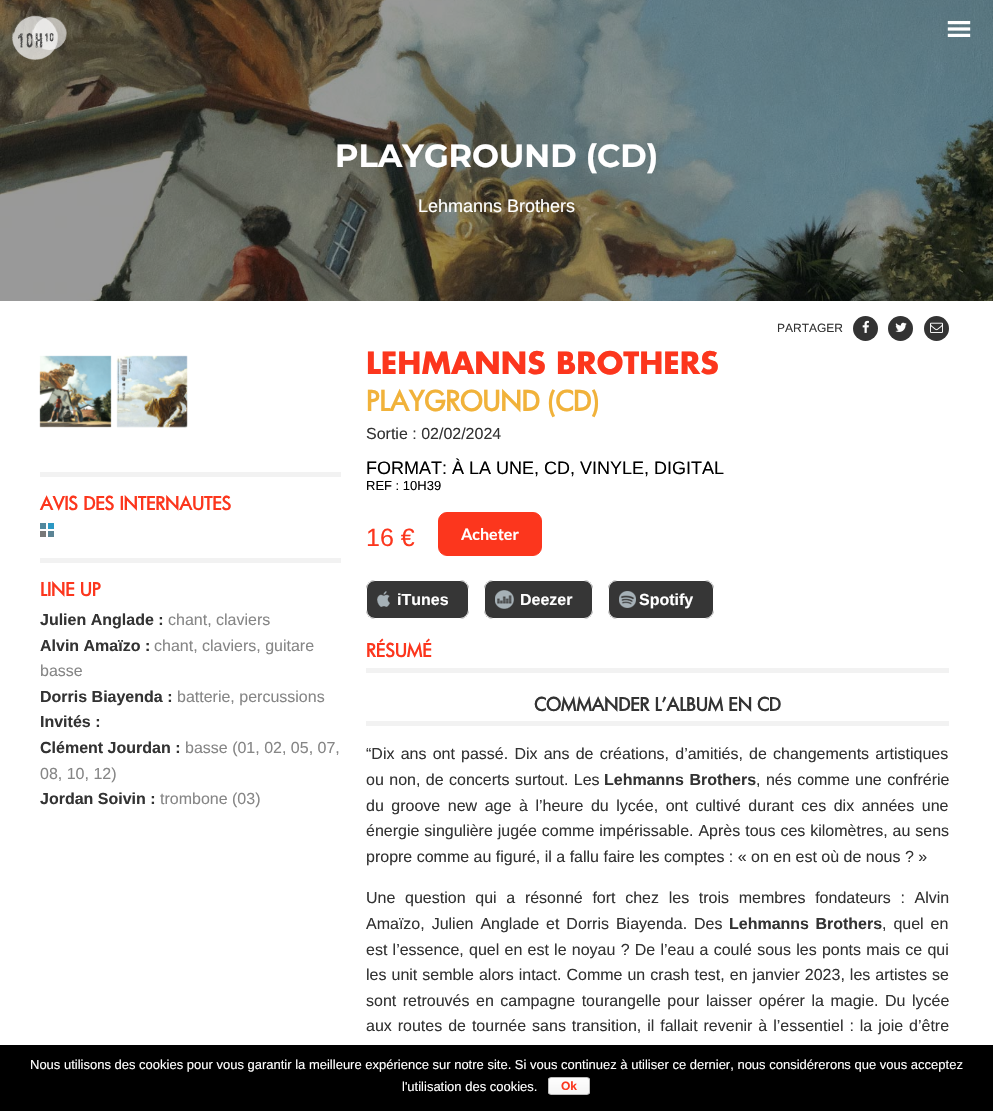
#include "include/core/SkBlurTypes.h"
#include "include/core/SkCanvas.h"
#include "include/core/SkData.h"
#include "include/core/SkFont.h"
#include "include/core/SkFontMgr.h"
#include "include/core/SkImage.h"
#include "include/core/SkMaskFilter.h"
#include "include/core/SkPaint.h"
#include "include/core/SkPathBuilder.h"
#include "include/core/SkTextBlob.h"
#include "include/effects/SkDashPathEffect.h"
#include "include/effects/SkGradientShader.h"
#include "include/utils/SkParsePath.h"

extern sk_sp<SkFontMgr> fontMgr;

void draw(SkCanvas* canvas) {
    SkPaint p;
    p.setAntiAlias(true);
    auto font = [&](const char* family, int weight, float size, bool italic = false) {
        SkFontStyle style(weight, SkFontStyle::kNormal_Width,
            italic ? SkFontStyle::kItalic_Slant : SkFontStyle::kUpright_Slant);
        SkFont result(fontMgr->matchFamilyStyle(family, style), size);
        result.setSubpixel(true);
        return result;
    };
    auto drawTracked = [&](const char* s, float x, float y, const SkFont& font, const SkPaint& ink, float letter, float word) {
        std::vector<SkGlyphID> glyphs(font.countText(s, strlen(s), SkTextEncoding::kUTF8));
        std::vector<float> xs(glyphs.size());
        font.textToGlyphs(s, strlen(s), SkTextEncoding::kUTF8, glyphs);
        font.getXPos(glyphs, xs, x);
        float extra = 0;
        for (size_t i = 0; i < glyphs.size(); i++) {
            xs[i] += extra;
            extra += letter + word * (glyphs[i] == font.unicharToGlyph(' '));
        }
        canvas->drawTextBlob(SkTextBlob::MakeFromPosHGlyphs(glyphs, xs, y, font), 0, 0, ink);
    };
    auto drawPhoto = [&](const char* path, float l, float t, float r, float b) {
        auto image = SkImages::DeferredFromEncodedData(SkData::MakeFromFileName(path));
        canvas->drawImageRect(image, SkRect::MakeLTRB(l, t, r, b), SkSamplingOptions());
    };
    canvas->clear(0xFFFFFFFF);
    drawPhoto("media/3.png", 0, 0, 1, 301);
    drawPhoto("media/4.png", 0, 0, 993, 301);
    drawPhoto("media/1.png", 12, 15, 67, 60);
    drawPhoto("media/2.png", 947, 21, 971, 37);
    auto font1 = font("Montserrat", 700, 32);
    p.setColor(0xFFFFFFFF);
    canvas->drawString("PLAYGROUND (CD)", 335, 167, font1, p);
    auto font2 = font("Liberation Sans", 400, 18);
    canvas->drawString("Lehmanns Brothers", 418, 212, font2, p);
    drawPhoto("media/5.png", 39, 355, 112, 428);
    drawPhoto("media/6.png", 116, 355, 188, 428);
    p.setColor(0xFFF2F2F2);
    canvas->drawRect(SkRect::MakeLTRB(40, 472, 341, 477), p);
    auto font3 = font("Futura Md", 700, 18);
    p.setColor(0xFFFC361D);
    canvas->drawString("AVIS DES INTERNAUTES", 40, 510, font3, p);
    drawPhoto("media/7.png", 40, 523, 54, 537);
    p.setColor(0xFFF2F2F2);
    canvas->drawRect(SkRect::MakeLTRB(40, 558, 341, 563), p);
    p.setColor(0xFFFC361D);
    canvas->drawString("LINE UP", 40, 596, font3, p);
    auto font4 = font("Liberation Sans", 700, 16);
    p.setColor(0xFF333333);
    canvas->drawString("Julien Anglade :", 40, 625, font4, p);
    auto font5 = font("Liberation Sans", 400, 16);
    p.setColor(0xFF868686);
    canvas->drawString("chant, claviers", 168, 625, font5, p);
    p.setColor(0xFF333333);
    canvas->drawString("Alvin Amaïzo :", 40, 651, font4, p);
    p.setColor(0xFF868686);
    canvas->drawString("chant, claviers, guitare", 154, 651, font5, p);
    canvas->drawString("basse", 40, 676, font5, p);
    p.setColor(0xFF333333);
    canvas->drawString("Dorris Biayenda :", 40, 702, font4, p);
    p.setColor(0xFF868686);
    canvas->drawString("batterie, percussions", 177, 702, font5, p);
    p.setColor(0xFF333333);
    canvas->drawString("Invités :", 40, 727, font4, p);
    canvas->drawString("Clément Jourdan :", 40, 753, font4, p);
    p.setColor(0xFF868686);
    canvas->drawString("basse (01, 02, 05, 07,", 185, 753, font5, p);
    canvas->drawString("08, 10, 12)", 40, 779, font5, p);
    p.setColor(0xFF333333);
    canvas->drawString("Jordan Soivin :", 40, 804, font4, p);
    p.setColor(0xFF868686);
    canvas->drawString("trombone (03)", 160, 804, font5, p);
    auto font6 = font("Liberation Sans", 400, 12);
    p.setColor(0xFF333333);
    canvas->drawString("PARTAGER", 777, 332, font6, p);
    canvas->drawCircle(865.5f, 328.5f, 12.5f, p);
    drawPhoto("media/8.png", 862, 320, 869, 333);
    canvas->drawCircle(900.5f, 328.5f, 12.5f, p);
    drawPhoto("media/9.png", 895, 322, 907, 332);
    canvas->drawCircle(936.5f, 328.5f, 12.5f, p);
    drawPhoto("media/10.png", 930, 322, 943, 333);
    auto font7 = font("Futura", 700, 30);
    p.setColor(0xFFFC361D);
    canvas->drawString("LEHMANNS BROTHERS", 366, 374, font7, p);
    auto font8 = font("Futura Md", 700, 27);
    p.setColor(0xFFF1B23A);
    canvas->drawString("PLAYGROUND (CD)", 366, 411, font8, p);
    p.setColor(0xFF333333);
    canvas->drawString("Sortie : 02/02/2024", 366, 439, font5, p);
    p.setColor(0xFF000000);
    canvas->drawString("FORMAT: À LA UNE, CD, VINYLE, DIGITAL", 366, 474, font2, p);
    auto font9 = font("Liberation Sans", 400, 13);
    canvas->drawString("REF : 10H39", 366, 490, font9, p);
    auto font10 = font("Liberation Sans", 400, 25);
    p.setColor(0xFFFC361D);
    canvas->drawString("16 €", 366, 546, font10, p);
    canvas->drawRoundRect(SkRect::MakeLTRB(438.5f, 512.5f, 541.5f, 555.5f), 8.5f, 8.5f, p);
    p.setStyle(SkPaint::kStroke_Style);
    p.setStrokeWidth(1);
    canvas->drawRoundRect(SkRect::MakeLTRB(438.5f, 512.5f, 541.5f, 555.5f), 8.5f, 8.5f, p);
    auto font11 = font("Lato", 700, 16);
    p.setStyle(SkPaint::kFill_Style);
    p.setColor(0xFFFFFFFF);
    canvas->drawString("Acheter", 461, 540, font11, p);
    p.setColor(0xFF363636);
    canvas->drawRoundRect(SkRect::MakeLTRB(366, 580, 469, 619), 9, 9, p);
    drawPhoto("media/11.png", 377, 591, 390, 607);
    p.setStyle(SkPaint::kStroke_Style);
    p.setColor(0xFFFFFFFF);
    canvas->drawRoundRect(SkRect::MakeLTRB(366.5f, 580.5f, 468.5f, 618.5f), 8.5f, 8.5f, p);
    p.setStyle(SkPaint::kFill_Style);
    canvas->drawString("iTunes", 397, 605, font4, p);
    p.setColor(0xFF363636);
    canvas->drawRoundRect(SkRect::MakeLTRB(484, 580, 593, 619), 9, 9, p);
    drawPhoto("media/12.png", 495, 590, 514, 609);
    p.setStyle(SkPaint::kStroke_Style);
    p.setColor(0xFFFFFFFF);
    canvas->drawRoundRect(SkRect::MakeLTRB(484.5f, 580.5f, 592.5f, 618.5f), 8.5f, 8.5f, p);
    p.setStyle(SkPaint::kFill_Style);
    canvas->drawString("Deezer", 520, 605, font4, p);
    p.setColor(0xFF363636);
    canvas->drawRoundRect(SkRect::MakeLTRB(608, 580, 714, 619), 9, 9, p);
    drawPhoto("media/13.png", 619, 591, 636, 608);
    p.setStyle(SkPaint::kStroke_Style);
    p.setColor(0xFFFFFFFF);
    canvas->drawRoundRect(SkRect::MakeLTRB(608.5f, 580.5f, 713.5f, 618.5f), 8.5f, 8.5f, p);
    p.setStyle(SkPaint::kFill_Style);
    canvas->drawString("Spotify", 639, 605, font4, p);
    p.setColor(0xFFF2F2F2);
    canvas->drawRect(SkRect::MakeLTRB(366, 668, 949, 673), p);
    p.setColor(0xFFFC361D);
    canvas->drawString("RÉSUMÉ", 366, 657, font3, p);
    p.setColor(0xFFF2F2F2);
    canvas->drawRect(SkRect::MakeLTRB(366, 721, 949, 726), p);
    p.setColor(0xFF333333);
    canvas->drawString("COMMANDER L’ALBUM EN CD", 534, 711, font3, p);
    drawTracked("“Dix ans ont passé. Dix ans de créations, d’amitiés, de changements artistiques", 366, 759, font5, p, 0, 1.75f);
    drawTracked("ou non, de concerts surtout. Les", 366, 785, font5, p, 0, 1);
    drawTracked("Lehmanns Brothers", 604, 785, font4, p, 0, 1);
    drawTracked(", nés comme une confrérie", 756, 785, font5, p, 0, 1);
    drawTracked("du groove new age à l’heure du lycée, ont cultivé durant ces dix années une", 366, 811, font5, p, 0, 3.1f);
    drawTracked("énergie singulière jugée comme impérissable. Après tous ces kilomètres, au sens", 366, 836, font5, p, 0, 0.5f);
    canvas->drawString("propre comme au figuré, il a fallu faire les comptes : « on en est où de nous ? »", 366, 862, font5, p);
    drawTracked("Une question qui a résonné fort chez les trois membres fondateurs : Alvin", 366, 903, font5, p, 0, 5.25f);
    drawTracked("Amaïzo, Julien Anglade et Dorris Biayenda. Des", 366, 929, font5, p, 0, 2.5f);
    drawTracked("Lehmanns Brothers", 729, 929, font4, p, 0, 2);
    drawTracked(", quel en", 882, 929, font5, p, 0, 2.5f);
    drawTracked("est l’essence, quel en est le noyau ? De l’eau a coulé sous les ponts mais ce qui", 366, 955, font5, p, 0, 0.8f);
    drawTracked("les unit semble alors intact. Comme un crash test, en janvier 2023, les artistes se", 366, 980, font5, p, 0, 0.6f);
    drawTracked("sont retrouvés en campagne tourangelle pour laisser opérer la magie. Du lycée", 366, 1006, font5, p, 0, 2.1f);
    drawTracked("aux routes de tournée sans transition, il fallait revenir à l’essentiel : la joie d’être", 366, 1031, font5, p, 0, 1.5f);
    p.setColor(0xFF000000);
    canvas->drawRect(SkRect::MakeLTRB(0, 1045, 993, 1111), p);
    p.setColor(0xFFFFFFFF);
    canvas->drawString("Nous utilisons des cookies pour vous garantir la meilleure expérience sur notre site. Si vous continuez à utiliser ce dernier, nous considérerons que vous acceptez", 30, 1069, font9, p);
    canvas->drawString("l'utilisation des cookies.", 402, 1091, font9, p);
    canvas->save();
    canvas->clipPath(SkPathBuilder().moveTo(551, 1077).lineTo(587, 1077).cubicTo(588.5f, 1077, 590, 1078.5f, 590, 1080).lineTo(590, 1092).cubicTo(590, 1093.5f, 588.5f, 1095, 587, 1095).lineTo(551, 1095).cubicTo(549.5f, 1095, 548, 1093.5f, 548, 1092).lineTo(548, 1080).cubicTo(548, 1078.5f, 549.5f, 1077, 551, 1077).close().detach(), true);
    {
        const SkColor colors[] = {0xFFFEFEFE, 0xFFF4F4F4};
        const float stops[] = {0, 1};
        const SkPoint ends[] = {{569, 1078}, {569, 1094}};
        p.setShader(SkGradientShader::MakeLinear(ends, colors, stops, 2, SkTileMode::kClamp));
        p.setAlpha(255);
    }
    canvas->drawRect(SkRect::MakeLTRB(548, 1078, 590, 1094), p);
    canvas->restore();
    p.setStyle(SkPaint::kStroke_Style);
    p.setShader(nullptr);
    p.setColor(0xFFBBBBBB);
    canvas->drawRoundRect(SkRect::MakeLTRB(548.5f, 1077.5f, 589.5f, 1094.5f), 2.5f, 2.5f, p);
    auto font12 = font("Liberation Sans", 700, 12);
    p.setStyle(SkPaint::kFill_Style);
    p.setColor(0xFFFC361D);
    canvas->drawString("Ok", 561, 1090, font12, p);
}
